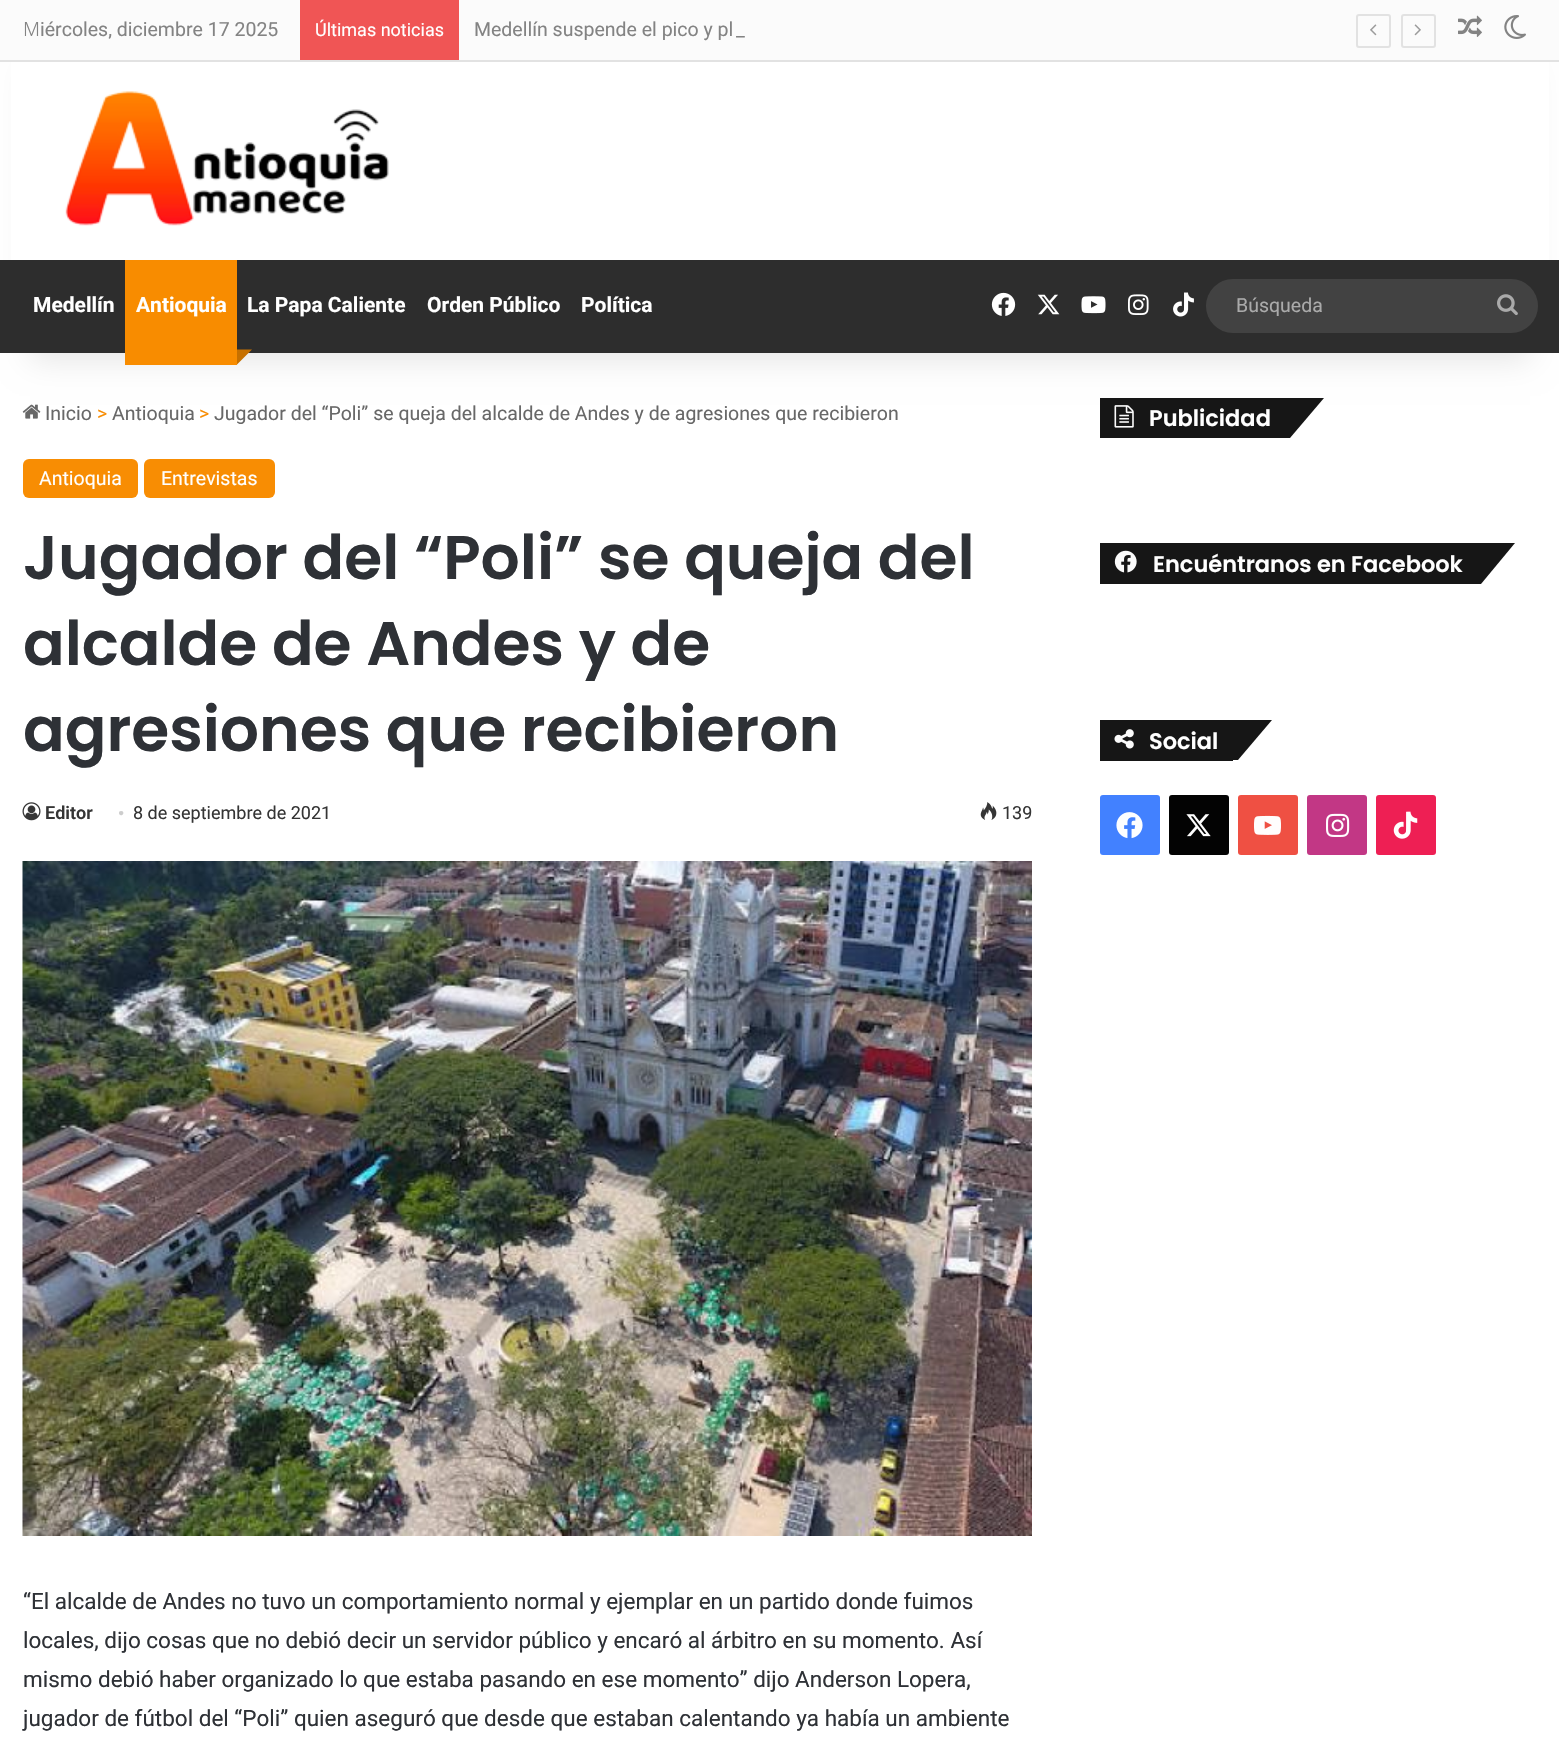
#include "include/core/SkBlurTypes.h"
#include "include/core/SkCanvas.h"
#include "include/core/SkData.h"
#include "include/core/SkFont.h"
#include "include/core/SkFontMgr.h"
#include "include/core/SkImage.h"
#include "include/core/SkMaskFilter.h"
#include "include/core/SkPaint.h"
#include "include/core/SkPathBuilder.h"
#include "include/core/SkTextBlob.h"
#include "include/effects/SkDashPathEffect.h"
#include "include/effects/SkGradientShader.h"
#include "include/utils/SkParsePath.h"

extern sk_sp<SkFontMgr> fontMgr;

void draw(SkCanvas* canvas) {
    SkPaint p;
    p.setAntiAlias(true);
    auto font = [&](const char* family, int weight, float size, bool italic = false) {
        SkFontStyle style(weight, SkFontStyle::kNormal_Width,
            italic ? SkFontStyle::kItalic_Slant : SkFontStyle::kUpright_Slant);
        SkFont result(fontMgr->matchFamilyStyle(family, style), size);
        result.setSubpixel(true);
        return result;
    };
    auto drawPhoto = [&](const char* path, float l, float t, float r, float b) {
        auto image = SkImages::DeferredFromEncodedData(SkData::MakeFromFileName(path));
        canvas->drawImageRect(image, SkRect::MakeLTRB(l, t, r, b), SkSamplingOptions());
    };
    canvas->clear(0xFFFFFFFF);
    drawPhoto("media/12.png", 22, 404, 41, 419);
    p.setColor(0xFF161616);
    canvas->drawRect(SkRect::MakeLTRB(1100, 398, 1194, 438), p);
    canvas->drawPath(SkPathBuilder().moveTo(1194, 398).lineTo(1324, 398).lineTo(1290, 438).lineTo(1160, 438).close().detach(), p);
    drawPhoto("media/16.png", 1114, 405, 1134, 428);
    p.setColor(0x1A000000);
    p.setMaskFilter(SkMaskFilter::MakeBlur(kNormal_SkBlurStyle, 15));
    canvas->drawRect(SkRect::MakeLTRB(30, 68, 1530, 360), p);
    p.setMaskFilter(nullptr);
    {
        const struct { float l, t, r, b; SkColor color; } items[] = {
            {11, 62, 1549, 260, 0xFFFFFFFF},
            {0, 0, 1559, 60, 0xFFFBFBFB},
            {0, 60, 1559, 62, 0xFFE2E2E2},
        };
        for (auto [l, t, r, b, color] : items) {
            p.setColor(color);
            canvas->drawRect(SkRect::MakeLTRB(l, t, r, b), p);
        }
    }
    auto font1 = font("Noto Sans", 300, 19.5f);
    p.setColor(0xFF838383);
    canvas->drawString("M", 23, 36, font1, p);
    auto font2 = font("Roboto", 400, 19.5f);
    canvas->drawString("iércoles, diciembre 17 2025", 40, 36, font2, p);
    p.setColor(0xFFF05555);
    canvas->drawRect(SkRect::MakeLTRB(300, 0, 459, 60), p);
    auto font3 = font("Roboto", 400, 18);
    p.setColor(0xFFFFFFFF);
    canvas->drawString("Últimas noticias", 315, 36, font3, p);
    p.setColor(0xFF838383);
    canvas->drawString("Medellín suspende el pico y pl", 474, 36, font2, p);
    canvas->drawString("_", 736, 36, font2, p);
    p.setStyle(SkPaint::kStroke_Style);
    p.setStrokeWidth(2);
    p.setColor(0xFFE2E2E2);
    canvas->drawRoundRect(SkRect::MakeLTRB(1357, 15, 1390, 47), 2, 2, p);
    drawPhoto("media/1.png", 1370, 24, 1377, 36);
    canvas->drawRoundRect(SkRect::MakeLTRB(1402, 15, 1435, 47), 2, 2, p);
    drawPhoto("media/2.png", 1414, 24, 1421, 36);
    drawPhoto("media/3.png", 1458, 15, 1482, 37);
    drawPhoto("media/4.png", 1504, 15, 1526, 39);
    drawPhoto("media/5.png", 65, 91, 389, 226);
    p.setStyle(SkPaint::kFill_Style);
    p.setColor(0xFF2D2D2D);
    canvas->drawRect(SkRect::MakeLTRB(0, 260, 1559, 353), p);
    auto font4 = font("Roboto", 700, 21);
    p.setColor(0xFFFFFFFF);
    canvas->drawString("Medellín", 33, 312, font4, p);
    p.setColor(0xFFF88C00);
    canvas->drawRect(SkRect::MakeLTRB(125, 260, 237, 365), p);
    p.setColor(0xFFFFFFFF);
    canvas->drawString("Antioquia", 136, 312, font4, p);
    p.setColor(0xFFC67000);
    canvas->drawPath(SkPathBuilder().moveTo(237, 349.5f).lineTo(252, 349.5f).lineTo(237, 364.5f).close().detach(), p);
    p.setColor(0xFFFFFFFF);
    {
        const struct { const char* s; float x, y; } items[] = {
            {"La Papa Caliente", 247, 312},
            {"Orden Público", 427, 312},
            {"Política", 581, 312},
        };
        for (auto [s, x, y] : items) {
            canvas->drawString(s, x, y, font4, p);
        }
    }
    drawPhoto("media/6.png", 991, 292, 1016, 316);
    drawPhoto("media/7.png", 1037, 294, 1060, 315);
    drawPhoto("media/8.png", 1081, 296, 1106, 314);
    drawPhoto("media/9.png", 1128, 294, 1149, 315);
    drawPhoto("media/10.png", 1173, 292, 1194, 317);
    p.setColor(0xFF424242);
    canvas->drawRoundRect(SkRect::MakeLTRB(1206, 279, 1538, 333), 27, 27, p);
    p.setColor(0xFFAAAAAA);
    canvas->drawString("Búsqueda", 1236, 312, font2, p);
    drawPhoto("media/11.png", 1497, 294, 1518, 316);
    p.setColor(0xFF686868);
    canvas->drawString("Inicio", 45, 420, font2, p);
    p.setColor(0xFFF88D03);
    canvas->drawString(">", 97, 420, font2, p);
    p.setColor(0xFF686868);
    canvas->drawString("Antioquia", 112, 420, font2, p);
    p.setColor(0xFFF88D03);
    canvas->drawString(">", 199, 420, font2, p);
    p.setColor(0xFF686868);
    canvas->drawString("Jugador del “Poli” se queja del alcalde de Andes y de agresiones que recibieron", 214, 420, font2, p);
    p.setColor(0xFFF88D03);
    canvas->drawRoundRect(SkRect::MakeLTRB(23, 459, 138, 498), 6, 6, p);
    p.setColor(0xFFFFFFFF);
    canvas->drawString("Antioquia", 39, 485, font2, p);
    p.setColor(0xFFF88D03);
    canvas->drawRoundRect(SkRect::MakeLTRB(144, 459, 275, 498), 6, 6, p);
    p.setColor(0xFFFFFFFF);
    canvas->drawString("Entrevistas", 161, 485, font2, p);
    auto font5 = font("Poppins", 600, 61.5f);
    p.setColor(0xFF2E3136);
    {
        const struct { const char* s; float x, y; } items[] = {
            {"Jugador del “Poli” se queja del", 23, 579},
            {"alcalde de Andes y de", 23, 665},
            {"agresiones que recibieron", 23, 751},
        };
        for (auto [s, x, y] : items) {
            canvas->drawString(s, x, y, font5, p);
        }
    }
    drawPhoto("media/13.png", 22, 802, 41, 821);
    auto font6 = font("Roboto", 600, 18);
    p.setColor(0xFF353535);
    canvas->drawString("Editor", 45, 819, font6, p);
    auto font7 = font("Liberation Serif", 400, 18);
    p.setColor(0xFFCDCDCD);
    canvas->drawString("•", 118, 819, font7, p);
    p.setColor(0xFF353535);
    canvas->drawString("8 de septiembre de 2021", 133, 819, font3, p);
    drawPhoto("media/14.png", 980, 802, 997, 820);
    canvas->drawString("139", 1002, 819, font3, p);
    drawPhoto("media/15.png", 22, 861, 1032, 1536);
    auto font8 = font("Roboto", 400, 22.5f);
    p.setColor(0xFF2E3136);
    {
        const struct { const char* s; float x, y; } items[] = {
            {"“El alcalde de Andes no tuvo un comportamiento normal y ejemplar en un partido donde fuimos", 23, 1609},
            {"locales, dijo cosas que no debió decir un servidor público y encaró al árbitro en su momento. Así", 23, 1648},
            {"mismo debió haber organizado lo que estaba pasando en ese momento” dijo Anderson Lopera,", 23, 1687},
            {"jugador de fútbol del “Poli” quien aseguró que desde que estaban calentando ya había un ambiente", 23, 1726},
        };
        for (auto [s, x, y] : items) {
            canvas->drawString(s, x, y, font8, p);
        }
    }
    auto font9 = font("Poppins", 600, 22.5f);
    p.setColor(0xFFFFFFFF);
    canvas->drawString("Publicidad", 1149, 426, font9, p);
    p.setColor(0xFF161616);
    canvas->drawRect(SkRect::MakeLTRB(1100, 543, 1251, 584), p);
    canvas->drawPath(SkPathBuilder().moveTo(1251, 543).lineTo(1515, 543).lineTo(1481, 584).lineTo(1217, 584).close().detach(), p);
    drawPhoto("media/17.png", 1114, 550, 1137, 573);
    p.setColor(0xFFFFFFFF);
    canvas->drawString("Encuéntranos en Facebook", 1153, 572, font9, p);
    p.setColor(0xFF161616);
    canvas->drawRect(SkRect::MakeLTRB(1100, 720, 1233, 761), p);
    canvas->drawPath(SkPathBuilder().moveTo(1178, 720).lineTo(1272, 720).lineTo(1238, 760).lineTo(1144, 760).close().detach(), p);
    drawPhoto("media/18.png", 1114, 729, 1134, 749);
    p.setColor(0xFFFFFFFF);
    canvas->drawString("Social", 1149, 749, font9, p);
    p.setColor(0xFF4281FF);
    canvas->drawRoundRect(SkRect::MakeLTRB(1100, 795, 1160, 855), 3, 3, p);
    drawPhoto("media/19.png", 1116, 812, 1143, 839);
    p.setColor(0xFF030303);
    canvas->drawRoundRect(SkRect::MakeLTRB(1169, 795, 1229, 855), 3, 3, p);
    drawPhoto("media/20.png", 1186, 814, 1211, 837);
    p.setColor(0xFFEF5043);
    canvas->drawRoundRect(SkRect::MakeLTRB(1238, 795, 1298, 855), 3, 3, p);
    drawPhoto("media/21.png", 1254, 815, 1281, 835);
    p.setColor(0xFFC23785);
    canvas->drawRoundRect(SkRect::MakeLTRB(1307, 795, 1367, 855), 3, 3, p);
    drawPhoto("media/22.png", 1326, 813, 1350, 837);
    p.setColor(0xFFEE1F54);
    canvas->drawRoundRect(SkRect::MakeLTRB(1376, 795, 1436, 855), 3, 3, p);
    drawPhoto("media/23.png", 1393, 811, 1418, 839);
}
